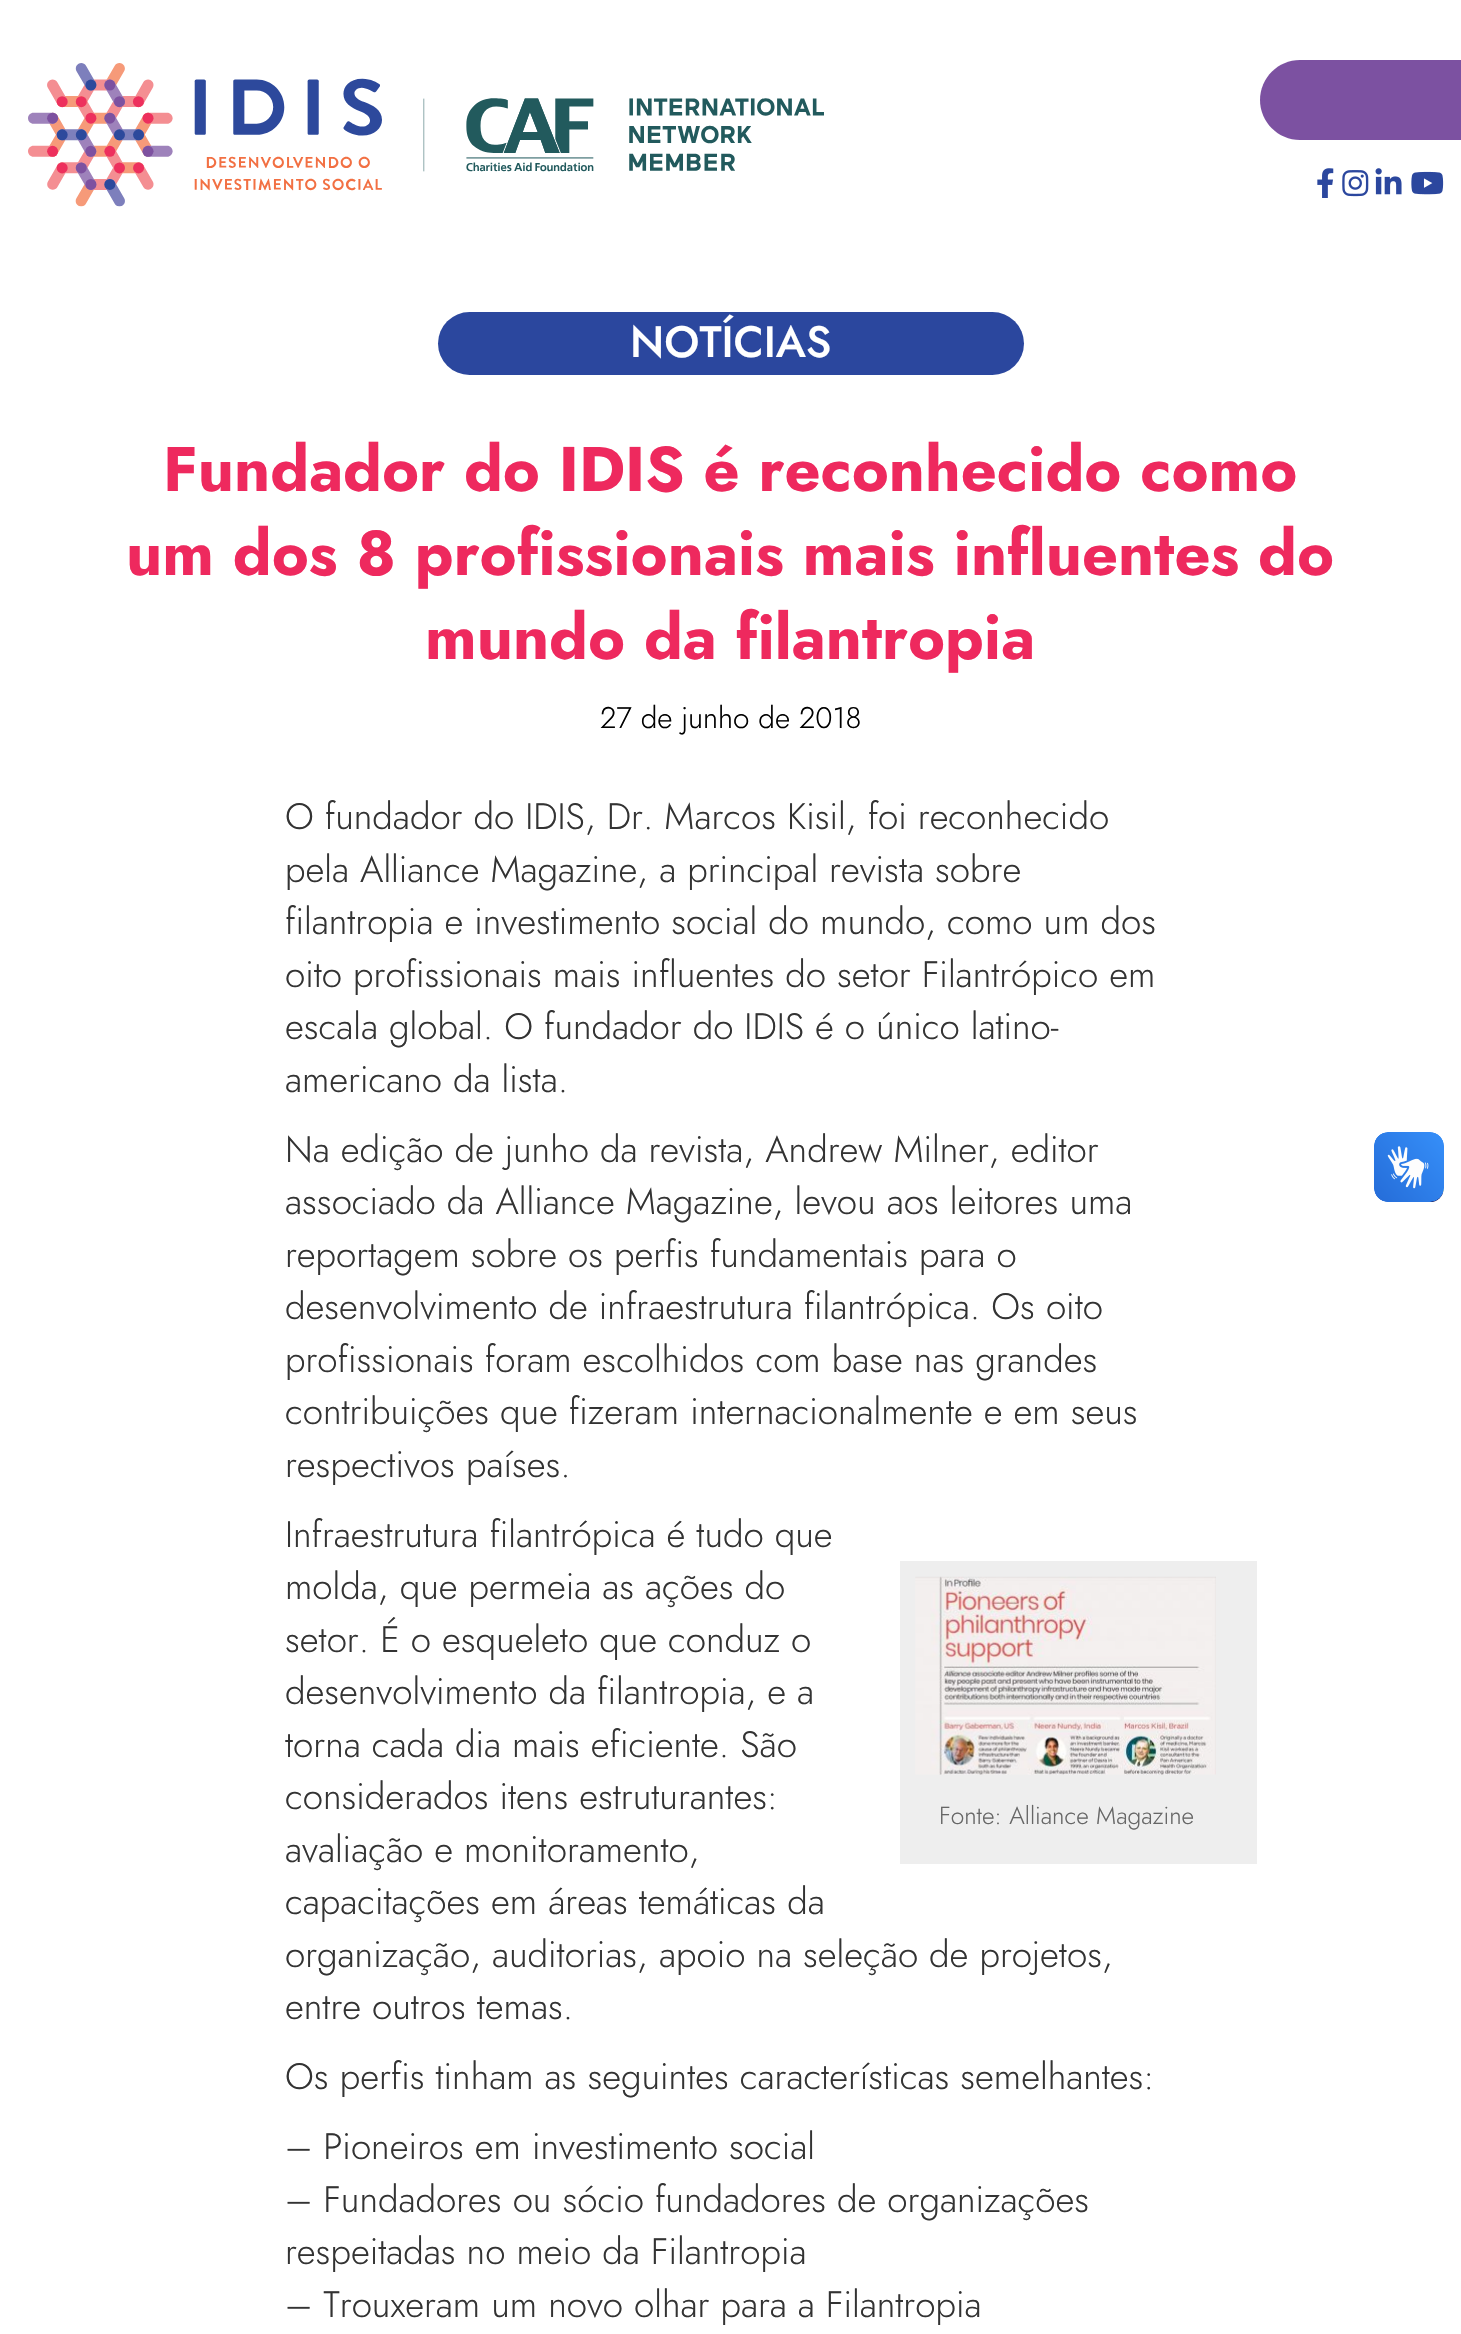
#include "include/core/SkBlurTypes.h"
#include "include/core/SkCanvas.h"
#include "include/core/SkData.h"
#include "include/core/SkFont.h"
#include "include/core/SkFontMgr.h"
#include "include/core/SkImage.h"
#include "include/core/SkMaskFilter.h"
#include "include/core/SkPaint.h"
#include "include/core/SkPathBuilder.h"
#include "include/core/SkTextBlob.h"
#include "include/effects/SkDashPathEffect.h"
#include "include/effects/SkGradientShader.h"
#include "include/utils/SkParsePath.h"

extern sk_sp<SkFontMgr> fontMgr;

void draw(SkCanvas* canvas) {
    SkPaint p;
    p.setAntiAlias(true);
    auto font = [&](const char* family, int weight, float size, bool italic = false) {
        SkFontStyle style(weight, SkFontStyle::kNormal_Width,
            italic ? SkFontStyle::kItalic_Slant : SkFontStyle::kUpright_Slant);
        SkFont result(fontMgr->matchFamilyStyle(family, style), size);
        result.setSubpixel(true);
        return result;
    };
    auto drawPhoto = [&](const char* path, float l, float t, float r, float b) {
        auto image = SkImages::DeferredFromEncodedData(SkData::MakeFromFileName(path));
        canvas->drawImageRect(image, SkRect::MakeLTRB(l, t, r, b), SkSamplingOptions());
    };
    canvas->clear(0xFFFFFFFF);
    drawPhoto("media/1.png", 28, 63, 824, 207);
    p.setColor(0xFF7C51A1);
    canvas->drawPath(SkPathBuilder().moveTo(1300, 60).lineTo(1461, 60).lineTo(1461, 140).lineTo(1300, 140).cubicTo(1278, 140, 1260, 122, 1260, 100).cubicTo(1260, 78, 1278, 60, 1300, 60).close().detach(), p);
    drawPhoto("media/2.png", 1317, 168, 1334, 198);
    drawPhoto("media/3.png", 1342, 170, 1369, 197);
    drawPhoto("media/4.png", 1375, 168, 1402, 195);
    drawPhoto("media/5.png", 1411, 171, 1444, 195);
    p.setColor(0xFF2B479E);
    canvas->drawRoundRect(SkRect::MakeLTRB(438, 312, 1024, 375), 31.5f, 31.5f, p);
    auto font1 = font("Jost", 500, 43.75f);
    p.setColor(0xFFFFFFFF);
    canvas->drawString("NOTÍCIAS", 630, 357, font1, p);
    auto font2 = font("Jost", 700, 63);
    p.setColor(0xFFEE295E);
    {
        const struct { const char* s; float x, y; } items[] = {
            {"Fundador do IDIS é reconhecido como", 163, 491},
            {"um dos 8 profissionais mais influentes do", 126, 575},
            {"mundo da filantropia", 425, 659},
        };
        for (auto [s, x, y] : items) {
            canvas->drawString(s, x, y, font2, p);
        }
    }
    auto font3 = font("Jost", 300, 29.75f);
    p.setColor(0xFF000000);
    canvas->drawString("27 de junho de 2018", 600, 728, font3, p);
    auto font4 = font("Jost", 300, 36.75f);
    p.setColor(0xFF333333);
    {
        const struct { const char* s; float x, y; } items[] = {
            {"O fundador do IDIS, Dr. Marcos Kisil, foi reconhecido", 285, 829},
            {"pela Alliance Magazine, a principal revista sobre", 285, 882},
            {"filantropia e investimento social do mundo, como um dos", 285, 934},
            {"oito profissionais mais influentes do setor Filantrópico em", 285, 987},
            {"escala global. O fundador do IDIS é o único latino-", 285, 1039},
            {"americano da lista.", 285, 1092},
            {"Na edição de junho da revista, Andrew Milner, editor", 285, 1162},
            {"associado da Alliance Magazine, levou aos leitores uma", 285, 1214},
            {"reportagem sobre os perfis fundamentais para o", 285, 1267},
            {"desenvolvimento de infraestrutura filantrópica. Os oito", 285, 1319},
            {"profissionais foram escolhidos com base nas grandes", 285, 1372},
            {"contribuições que fizeram internacionalmente e em seus", 285, 1424},
            {"respectivos países.", 285, 1477},
            {"Infraestrutura filantrópica é tudo que", 285, 1547},
            {"molda, que permeia as ações do", 285, 1599},
            {"setor. É o esqueleto que conduz o", 285, 1652},
            {"desenvolvimento da filantropia, e a", 285, 1704},
            {"torna cada dia mais eficiente. São", 285, 1757},
            {"considerados itens estruturantes:", 285, 1809},
            {"avaliação e monitoramento,", 285, 1862},
            {"capacitações em áreas temáticas da", 285, 1914},
            {"organização, auditorias, apoio na seleção de projetos,", 285, 1967},
            {"entre outros temas.", 285, 2019},
        };
        for (auto [s, x, y] : items) {
            canvas->drawString(s, x, y, font4, p);
        }
    }
    p.setColor(0xFFEEEEEE);
    canvas->drawRect(SkRect::MakeLTRB(900, 1561, 1257, 1864), p);
    drawPhoto("media/6.png", 915, 1576, 1216, 1775);
    auto font5 = font("Jost", 300, 24.5f);
    p.setColor(0xFF666666);
    canvas->drawString("Fonte: Alliance Magazine", 939, 1824, font5, p);
    p.setColor(0xFF333333);
    {
        const struct { const char* s; float x, y; } items[] = {
            {"Os perfis tinham as seguintes características semelhantes:", 285, 2089},
            {"– Pioneiros em investimento social", 285, 2159},
            {"– Fundadores ou sócio fundadores de organizações", 285, 2212},
            {"respeitadas no meio da Filantropia", 285, 2264},
            {"– Trouxeram um novo olhar para a Filantropia", 285, 2317},
        };
        for (auto [s, x, y] : items) {
            canvas->drawString(s, x, y, font4, p);
        }
    }
    drawPhoto("media/7.png", 1374, 1132, 1444, 1202);
    drawPhoto("media/8.png", 1374, 1132, 1444, 1202);
}
